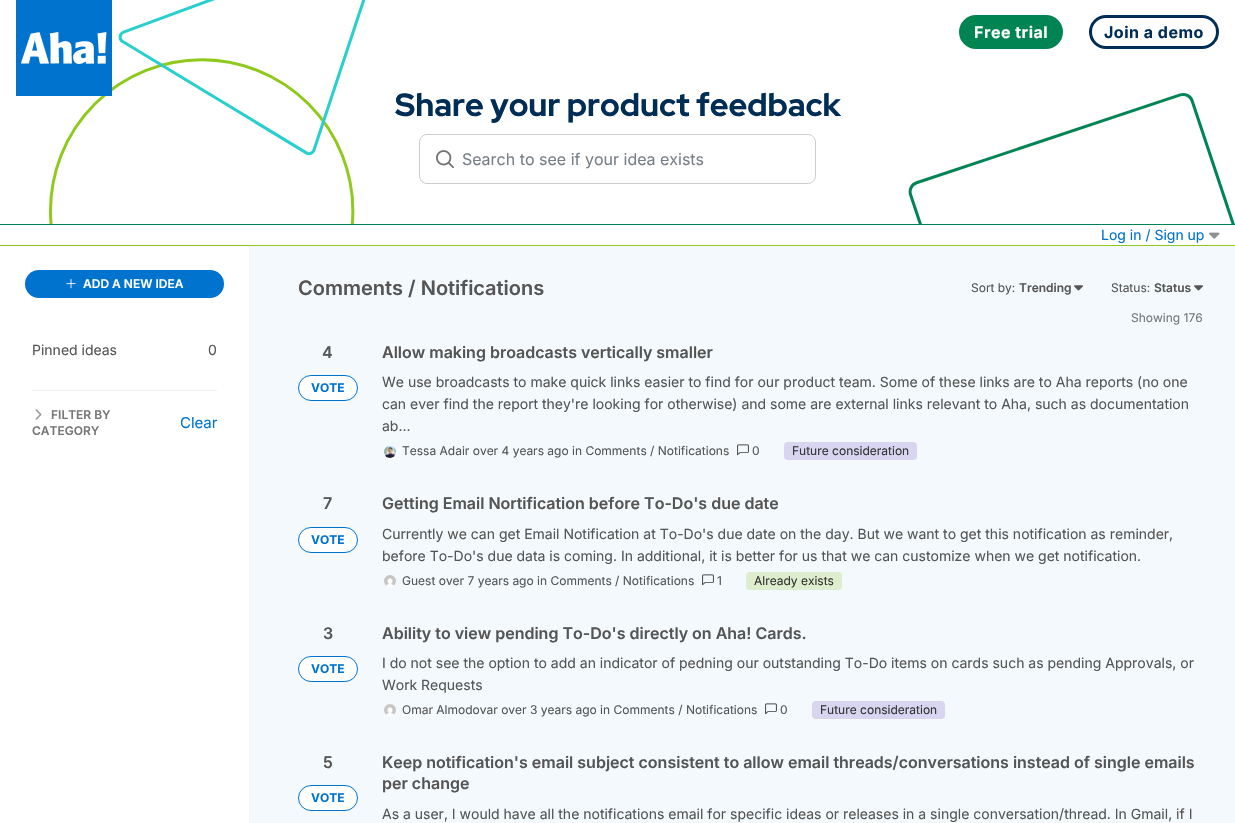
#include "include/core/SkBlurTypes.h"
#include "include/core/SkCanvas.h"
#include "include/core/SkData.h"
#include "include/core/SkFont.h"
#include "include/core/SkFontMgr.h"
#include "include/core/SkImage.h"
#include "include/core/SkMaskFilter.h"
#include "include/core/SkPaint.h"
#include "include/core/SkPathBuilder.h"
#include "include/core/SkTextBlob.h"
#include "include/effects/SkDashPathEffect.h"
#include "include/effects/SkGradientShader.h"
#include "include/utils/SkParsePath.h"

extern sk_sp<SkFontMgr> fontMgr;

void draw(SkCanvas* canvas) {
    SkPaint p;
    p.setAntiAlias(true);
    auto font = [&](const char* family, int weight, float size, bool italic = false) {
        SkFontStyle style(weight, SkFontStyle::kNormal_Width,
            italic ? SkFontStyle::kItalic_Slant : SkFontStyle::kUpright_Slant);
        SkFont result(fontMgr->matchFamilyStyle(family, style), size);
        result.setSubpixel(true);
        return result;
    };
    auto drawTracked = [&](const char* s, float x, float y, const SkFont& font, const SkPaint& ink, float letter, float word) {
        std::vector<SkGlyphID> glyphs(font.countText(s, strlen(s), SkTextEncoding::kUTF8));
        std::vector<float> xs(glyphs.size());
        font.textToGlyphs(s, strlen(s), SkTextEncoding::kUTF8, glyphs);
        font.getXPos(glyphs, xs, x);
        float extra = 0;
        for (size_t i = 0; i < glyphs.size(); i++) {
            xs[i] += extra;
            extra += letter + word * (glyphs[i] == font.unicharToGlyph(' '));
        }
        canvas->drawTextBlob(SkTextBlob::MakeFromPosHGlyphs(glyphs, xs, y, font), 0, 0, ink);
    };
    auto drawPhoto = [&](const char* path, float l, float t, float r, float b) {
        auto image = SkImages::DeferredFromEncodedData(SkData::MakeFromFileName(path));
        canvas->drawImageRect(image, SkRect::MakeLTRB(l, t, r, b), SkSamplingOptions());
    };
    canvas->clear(0xFFF3F9FD);
    p.setColor(0xFFFFFFFF);
    canvas->drawRect(SkRect::MakeLTRB(0, 0, 1235, 224), p);
    drawPhoto("media/2.png", 49, 0, 1235, 224);
    p.setColor(0xFF0073CF);
    canvas->drawRect(SkRect::MakeLTRB(16, 0, 112, 96), p);
    drawPhoto("media/1.png", 21, 32, 107, 64);
    p.setColor(0xFF018454);
    canvas->drawRoundRect(SkRect::MakeLTRB(960.5f, 16.5f, 1061.5f, 47.5f), 15.5f, 15.5f, p);
    p.setStyle(SkPaint::kStroke_Style);
    p.setStrokeWidth(3);
    canvas->drawRoundRect(SkRect::MakeLTRB(960.5f, 16.5f, 1061.5f, 47.5f), 15.5f, 15.5f, p);
    auto font1 = font("Inter", 700, 16);
    p.setStyle(SkPaint::kFill_Style);
    p.setColor(0xFFFFFFFF);
    drawTracked("Free trial", 974, 38, font1, p, 0.5f, 0);
    p.setStyle(SkPaint::kStroke_Style);
    p.setColor(0xFF002D56);
    canvas->drawRoundRect(SkRect::MakeLTRB(1090.5f, 16.5f, 1217.5f, 47.5f), 15.5f, 15.5f, p);
    p.setStyle(SkPaint::kFill_Style);
    drawTracked("Join a demo", 1104, 38, font1, p, 0.5f, 0);
    auto font2 = font("Red Hat Display", 800, 32);
    canvas->drawString("Share your product feedback", 395, 116, font2, p);
    p.setStyle(SkPaint::kStroke_Style);
    p.setStrokeWidth(1);
    p.setColor(0xFFCDCDCD);
    canvas->drawRoundRect(SkRect::MakeLTRB(419.5f, 134.5f, 815.5f, 183.5f), 7.5f, 7.5f, p);
    drawPhoto("media/3.png", 436, 150, 454, 169);
    auto font3 = font("Inter", 400, 16);
    p.setStyle(SkPaint::kFill_Style);
    p.setColor(0xFF767E86);
    canvas->drawString("Search to see if your idea exists", 462, 165, font3, p);
    {
        const struct { float l, t, r, b; SkColor color; } items[] = {
            {0, 225, 1235, 245, 0xFFFFFFFF},
            {0, 224, 1235, 225, 0xFF018454},
            {0, 245, 1235, 246, 0xFF90C91D},
        };
        for (auto [l, t, r, b, color] : items) {
            p.setColor(color);
            canvas->drawRect(SkRect::MakeLTRB(l, t, r, b), p);
        }
    }
    auto font4 = font("Inter", 400, 14);
    p.setColor(0xFF0073CF);
    canvas->drawString("Log in / Sign up", 1101, 240, font4, p);
    drawPhoto("media/4.png", 1209, 232, 1220, 239);
    p.setColor(0xFFFFFFFF);
    canvas->drawRect(SkRect::MakeLTRB(0, 246, 249, 823), p);
    p.setColor(0xFFF4F4F4);
    canvas->drawRect(SkRect::MakeLTRB(249, 246, 250, 823), p);
    p.setColor(0xFF0073CF);
    canvas->drawRoundRect(SkRect::MakeLTRB(25, 270, 224, 298), 14, 14, p);
    drawPhoto("media/5.png", 66, 279, 76, 289);
    auto font5 = font("Inter", 600, 12);
    p.setColor(0xFFFFFFFF);
    canvas->drawString("ADD A NEW IDEA", 83, 288, font5, p);
    p.setColor(0xFF555555);
    canvas->drawString("Pinned ideas", 32, 355, font4, p);
    canvas->drawString("0", 208, 355, font4, p);
    p.setColor(0xFFF1F1F1);
    canvas->drawRect(SkRect::MakeLTRB(32, 390, 217, 391), p);
    drawPhoto("media/6.png", 35, 409, 42, 420);
    p.setColor(0xFF767676);
    canvas->drawString("FILTER BY", 51, 419, font5, p);
    canvas->drawString("CATEGORY", 32, 435, font5, p);
    auto font6 = font("Inter", 400, 15);
    p.setColor(0xFF0073CF);
    canvas->drawString("Clear", 180, 428, font6, p);
    auto font7 = font("Inter", 600, 20);
    p.setColor(0xFF555555);
    canvas->drawString("Comments / Notifications", 298, 295, font7, p);
    auto font8 = font("Inter", 400, 12);
    canvas->drawString("Sort by:", 971, 292, font8, p);
    canvas->drawString("Trending", 1019, 292, font5, p);
    drawPhoto("media/7.png", 1074, 285, 1083, 291);
    canvas->drawString("Status:", 1111, 292, font8, p);
    canvas->drawString("Status", 1154, 292, font5, p);
    drawPhoto("media/7.png", 1194, 285, 1203, 291);
    p.setColor(0xFF767676);
    canvas->drawString("Showing 176", 1131, 322, font8, p);
    auto font9 = font("Inter", 600, 16);
    p.setColor(0xFF555555);
    canvas->drawString("4", 322, 358, font9, p);
    p.setColor(0xFFFFFFFF);
    canvas->drawRoundRect(SkRect::MakeLTRB(298.5f, 375.5f, 357.5f, 400.5f), 12.5f, 12.5f, p);
    p.setStyle(SkPaint::kStroke_Style);
    p.setColor(0xFF0073CF);
    canvas->drawRoundRect(SkRect::MakeLTRB(298.5f, 375.5f, 357.5f, 400.5f), 12.5f, 12.5f, p);
    auto font10 = font("Inter", 700, 12);
    p.setStyle(SkPaint::kFill_Style);
    canvas->drawString("VOTE", 311, 392, font10, p);
    p.setColor(0xFF555555);
    canvas->drawString("Allow making broadcasts vertically smaller", 382, 358, font9, p);
    {
        const struct { const char* s; float x, y; } items[] = {
            {"We use broadcasts to make quick links easier to find for our product team. Some of these links are to Aha reports (no one", 382, 387},
            {"can ever find the report they're looking for otherwise) and some are external links relevant to Aha, such as documentation", 382, 409},
            {"ab...", 382, 431},
        };
        for (auto [s, x, y] : items) {
            canvas->drawString(s, x, y, font4, p);
        }
    }
    drawPhoto("media/8.png", 384, 446, 396, 458);
    canvas->drawString("Tessa Adair over 4 years ago in Comments / Notifications", 402, 455, font8, p);
    drawPhoto("media/9.png", 737, 444, 749, 456);
    canvas->drawString("0", 752, 455, font8, p);
    p.setColor(0xFFD7D5EF);
    canvas->drawRoundRect(SkRect::MakeLTRB(784, 442, 917, 460), 4, 4, p);
    p.setColor(0xFF333333);
    canvas->drawString("Future consideration", 792, 455, font8, p);
    p.setColor(0xFF555555);
    canvas->drawString("7", 323, 509, font9, p);
    p.setColor(0xFFFFFFFF);
    canvas->drawRoundRect(SkRect::MakeLTRB(298.5f, 527.5f, 357.5f, 552.5f), 12.5f, 12.5f, p);
    p.setStyle(SkPaint::kStroke_Style);
    p.setColor(0xFF0073CF);
    canvas->drawRoundRect(SkRect::MakeLTRB(298.5f, 527.5f, 357.5f, 552.5f), 12.5f, 12.5f, p);
    p.setStyle(SkPaint::kFill_Style);
    canvas->drawString("VOTE", 311, 544, font10, p);
    p.setColor(0xFF555555);
    canvas->drawString("Getting Email Nortification before To-Do's due date", 382, 509, font9, p);
    canvas->drawString("Currently we can get Email Notification at To-Do's due date on the day. But we want to get this notification as reminder,", 382, 539, font4, p);
    canvas->drawString("before To-Do's due data is coming. In additional, it is better for us that we can customize when we get notification.", 382, 561, font4, p);
    drawPhoto("media/10.png", 384, 575, 396, 587);
    canvas->drawString("Guest over 7 years ago in Comments / Notifications", 402, 585, font8, p);
    drawPhoto("media/9.png", 702, 574, 714, 586);
    canvas->drawString("1", 717, 585, font8, p);
    p.setColor(0xFFDFEDCF);
    canvas->drawRoundRect(SkRect::MakeLTRB(746, 572, 842, 590), 4, 4, p);
    p.setColor(0xFF333333);
    canvas->drawString("Already exists", 754, 585, font8, p);
    p.setColor(0xFF555555);
    canvas->drawString("3", 323, 639, font9, p);
    p.setColor(0xFFFFFFFF);
    canvas->drawRoundRect(SkRect::MakeLTRB(298.5f, 656.5f, 357.5f, 681.5f), 12.5f, 12.5f, p);
    p.setStyle(SkPaint::kStroke_Style);
    p.setColor(0xFF0073CF);
    canvas->drawRoundRect(SkRect::MakeLTRB(298.5f, 656.5f, 357.5f, 681.5f), 12.5f, 12.5f, p);
    p.setStyle(SkPaint::kFill_Style);
    canvas->drawString("VOTE", 311, 673, font10, p);
    p.setColor(0xFF555555);
    canvas->drawString("Ability to view pending To-Do's directly on Aha! Cards.", 382, 639, font9, p);
    canvas->drawString("I do not see the option to add an indicator of pedning our outstanding To-Do items on cards such as pending Approvals, or", 382, 668, font4, p);
    canvas->drawString("Work Requests", 382, 690, font4, p);
    drawPhoto("media/10.png", 384, 704, 396, 716);
    canvas->drawString("Omar Almodovar over 3 years ago in Comments / Notifications", 402, 714, font8, p);
    drawPhoto("media/9.png", 765, 703, 777, 715);
    canvas->drawString("0", 780, 714, font8, p);
    p.setColor(0xFFD7D5EF);
    canvas->drawRoundRect(SkRect::MakeLTRB(812, 701, 945, 719), 4, 4, p);
    p.setColor(0xFF333333);
    canvas->drawString("Future consideration", 820, 714, font8, p);
    p.setColor(0xFF555555);
    canvas->drawString("5", 323, 768, font9, p);
    p.setColor(0xFFFFFFFF);
    canvas->drawRoundRect(SkRect::MakeLTRB(298.5f, 785.5f, 357.5f, 810.5f), 12.5f, 12.5f, p);
    p.setStyle(SkPaint::kStroke_Style);
    p.setColor(0xFF0073CF);
    canvas->drawRoundRect(SkRect::MakeLTRB(298.5f, 785.5f, 357.5f, 810.5f), 12.5f, 12.5f, p);
    p.setStyle(SkPaint::kFill_Style);
    canvas->drawString("VOTE", 311, 802, font10, p);
    p.setColor(0xFF555555);
    canvas->drawString("Keep notification's email subject consistent to allow email threads/conversations instead of single emails", 382, 768, font9, p);
    canvas->drawString("per change", 382, 789, font9, p);
    canvas->drawString("As a user, I would have all the notifications email for specific ideas or releases in a single conversation/thread. In Gmail, if I", 382, 819, font4, p);
}
